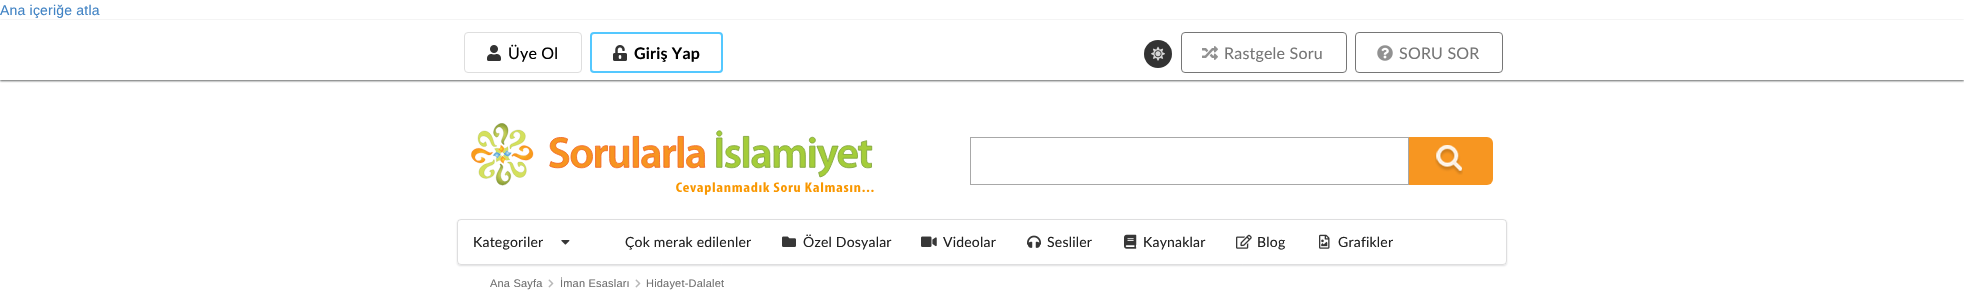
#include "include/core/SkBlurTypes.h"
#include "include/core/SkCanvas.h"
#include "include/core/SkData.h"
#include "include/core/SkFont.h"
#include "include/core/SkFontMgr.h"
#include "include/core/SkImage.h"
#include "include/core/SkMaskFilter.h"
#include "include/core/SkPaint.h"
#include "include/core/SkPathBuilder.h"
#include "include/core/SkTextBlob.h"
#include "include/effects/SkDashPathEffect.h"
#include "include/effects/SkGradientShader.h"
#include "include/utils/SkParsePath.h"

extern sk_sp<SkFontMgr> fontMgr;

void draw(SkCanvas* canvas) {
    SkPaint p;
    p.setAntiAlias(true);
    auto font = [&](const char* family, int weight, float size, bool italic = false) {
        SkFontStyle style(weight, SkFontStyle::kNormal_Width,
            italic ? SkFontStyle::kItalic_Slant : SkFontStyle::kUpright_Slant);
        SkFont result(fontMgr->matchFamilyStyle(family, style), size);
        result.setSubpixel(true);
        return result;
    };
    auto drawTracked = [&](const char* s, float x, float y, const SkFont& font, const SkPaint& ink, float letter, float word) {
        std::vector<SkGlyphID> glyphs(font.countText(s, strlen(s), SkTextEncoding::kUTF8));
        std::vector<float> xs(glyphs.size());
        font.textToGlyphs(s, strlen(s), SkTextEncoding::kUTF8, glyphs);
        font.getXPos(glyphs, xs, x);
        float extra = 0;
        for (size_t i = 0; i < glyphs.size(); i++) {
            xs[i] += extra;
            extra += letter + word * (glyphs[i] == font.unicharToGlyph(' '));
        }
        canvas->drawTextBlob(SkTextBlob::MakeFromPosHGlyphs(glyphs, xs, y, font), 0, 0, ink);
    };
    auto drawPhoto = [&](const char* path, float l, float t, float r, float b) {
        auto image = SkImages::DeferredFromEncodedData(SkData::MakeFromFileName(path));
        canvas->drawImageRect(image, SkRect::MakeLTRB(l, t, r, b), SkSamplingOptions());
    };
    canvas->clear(0xFFFFFFFF);
    canvas->save();
    canvas->clipPath(SkPathBuilder(SkPathFillType::kEvenOdd).moveTo(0, 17).lineTo(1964, 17).lineTo(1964, 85).lineTo(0, 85).close().moveTo(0, 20).lineTo(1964, 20).lineTo(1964, 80).lineTo(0, 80).close().detach(), true);
    p.setColor(0xBF2D3232);
    p.setMaskFilter(SkMaskFilter::MakeBlur(kNormal_SkBlurStyle, 1));
    canvas->drawRect(SkRect::MakeLTRB(0, 21, 1964, 81), p);
    p.setMaskFilter(nullptr);
    canvas->restore();
    auto font1 = font("Liberation Sans", 400, 14);
    p.setColor(0xFF4183C4);
    drawTracked("Ana içeriğe atla", 0, 15, font1, p, 0.2f, 0);
    p.setStyle(SkPaint::kStroke_Style);
    p.setStrokeWidth(1);
    p.setColor(0xFFDEDEDE);
    canvas->drawRoundRect(SkRect::MakeLTRB(464.5f, 32.5f, 581.5f, 72.5f), 3.5f, 3.5f, p);
    drawPhoto("media/1.png", 487, 45, 501, 61);
    auto font2 = font("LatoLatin", 400, 16);
    p.setStyle(SkPaint::kFill_Style);
    p.setColor(0xFF000000);
    drawTracked("Üye Ol", 508, 59, font2, p, 0.2f, 0);
    p.setStyle(SkPaint::kStroke_Style);
    p.setStrokeWidth(2);
    p.setColor(0xFF54C8FF);
    canvas->drawRoundRect(SkRect::MakeLTRB(591, 33, 722, 72), 3, 3, p);
    drawPhoto("media/2.png", 613, 45, 627, 61);
    auto font3 = font("LatoLatin", 700, 16);
    p.setStyle(SkPaint::kFill_Style);
    p.setColor(0xFF000000);
    drawTracked("Giriş Yap", 634, 59, font3, p, 0.2f, 0);
    p.setColor(0xFF333333);
    canvas->drawCircle(1158, 54, 14, p);
    p.setStyle(SkPaint::kStroke_Style);
    p.setStrokeWidth(1);
    p.setColor(0x1A333333);
    canvas->drawCircle(1158, 54, 13.5f, p);
    drawPhoto("media/3.png", 1151, 46, 1165, 61);
    p.setColor(0xFF767676);
    canvas->drawRoundRect(SkRect::MakeLTRB(1181.5f, 32.5f, 1346.5f, 72.5f), 3.5f, 3.5f, p);
    drawPhoto("media/4.png", 1202, 46, 1218, 60);
    p.setStyle(SkPaint::kFill_Style);
    drawTracked("Rastgele Soru", 1224, 59, font2, p, 0.2f, 0);
    p.setStyle(SkPaint::kStroke_Style);
    canvas->drawRoundRect(SkRect::MakeLTRB(1355.5f, 32.5f, 1502.5f, 72.5f), 3.5f, 3.5f, p);
    drawPhoto("media/5.png", 1377, 45, 1393, 61);
    p.setStyle(SkPaint::kFill_Style);
    drawTracked("SORU SOR", 1399, 59, font2, p, 0.2f, 0);
    drawPhoto("media/6.png", 471, 123, 874, 195);
    p.setColor(0xFFF79621);
    canvas->drawRoundRect(SkRect::MakeLTRB(970, 137, 1493, 185), 6, 6, p);
    p.setColor(0xFFFFFFFF);
    canvas->drawRect(SkRect::MakeLTRB(970.5f, 137.5f, 1408.5f, 184.5f), p);
    p.setStyle(SkPaint::kStroke_Style);
    p.setColor(0xFFA8A8A8);
    canvas->drawRect(SkRect::MakeLTRB(970.5f, 137.5f, 1408.5f, 184.5f), p);
    drawPhoto("media/7.png", 1435, 145, 1463, 175);
    p.setStyle(SkPaint::kFill_Style);
    p.setColor(0x26222426);
    p.setMaskFilter(SkMaskFilter::MakeBlur(kNormal_SkBlurStyle, 1));
    canvas->drawRoundRect(SkRect::MakeLTRB(457, 220, 1507, 266), 4, 4, p);
    p.setMaskFilter(nullptr);
    p.setColor(0xFFFFFFFF);
    canvas->drawRoundRect(SkRect::MakeLTRB(457, 219, 1507, 265), 4, 4, p);
    p.setStyle(SkPaint::kStroke_Style);
    p.setColor(0x26222426);
    canvas->drawRoundRect(SkRect::MakeLTRB(457.5f, 219.5f, 1506.5f, 264.5f), 3.5f, 3.5f, p);
    auto font4 = font("LatoLatin", 400, 14);
    p.setStyle(SkPaint::kFill_Style);
    p.setColor(0xFF212121);
    drawTracked("Kategoriler", 473, 247, font4, p, 0.2f, 0);
    drawPhoto("media/8.png", 561, 240, 570, 245);
    drawTracked("Çok merak edilenler", 625, 247, font4, p, 0.2f, 0);
    drawPhoto("media/9.png", 782, 236, 796, 247);
    drawTracked("Özel Dosyalar", 803, 247, font4, p, 0.2f, 0);
    drawPhoto("media/10.png", 921, 236, 937, 247);
    drawTracked("Videolar", 943, 247, font4, p, 0.2f, 0);
    drawPhoto("media/11.png", 1027, 235, 1041, 248);
    drawTracked("Sesliler", 1047, 247, font4, p, 0.2f, 0);
    drawPhoto("media/12.png", 1124, 234, 1137, 249);
    drawTracked("Kaynaklar", 1143, 247, font4, p, 0.2f, 0);
    drawPhoto("media/13.png", 1236, 234, 1252, 249);
    drawTracked("Blog", 1257, 247, font4, p, 0.2f, 0);
    drawPhoto("media/14.png", 1319, 234, 1330, 249);
    drawTracked("Grafikler", 1338, 247, font4, p, 0.2f, 0);
    auto font5 = font("Liberation Sans", 400, 11);
    p.setColor(0xFF707070);
    drawTracked("Ana Sayfa", 490, 287, font5, p, 0.2f, 0);
    drawPhoto("media/15.png", 548, 279, 554, 288);
    drawTracked("İman Esasları", 560, 287, font5, p, 0.2f, 0);
    drawPhoto("media/15.png", 635, 279, 641, 288);
    drawTracked("Hidayet-Dalalet", 646, 287, font5, p, 0.2f, 0);
}
